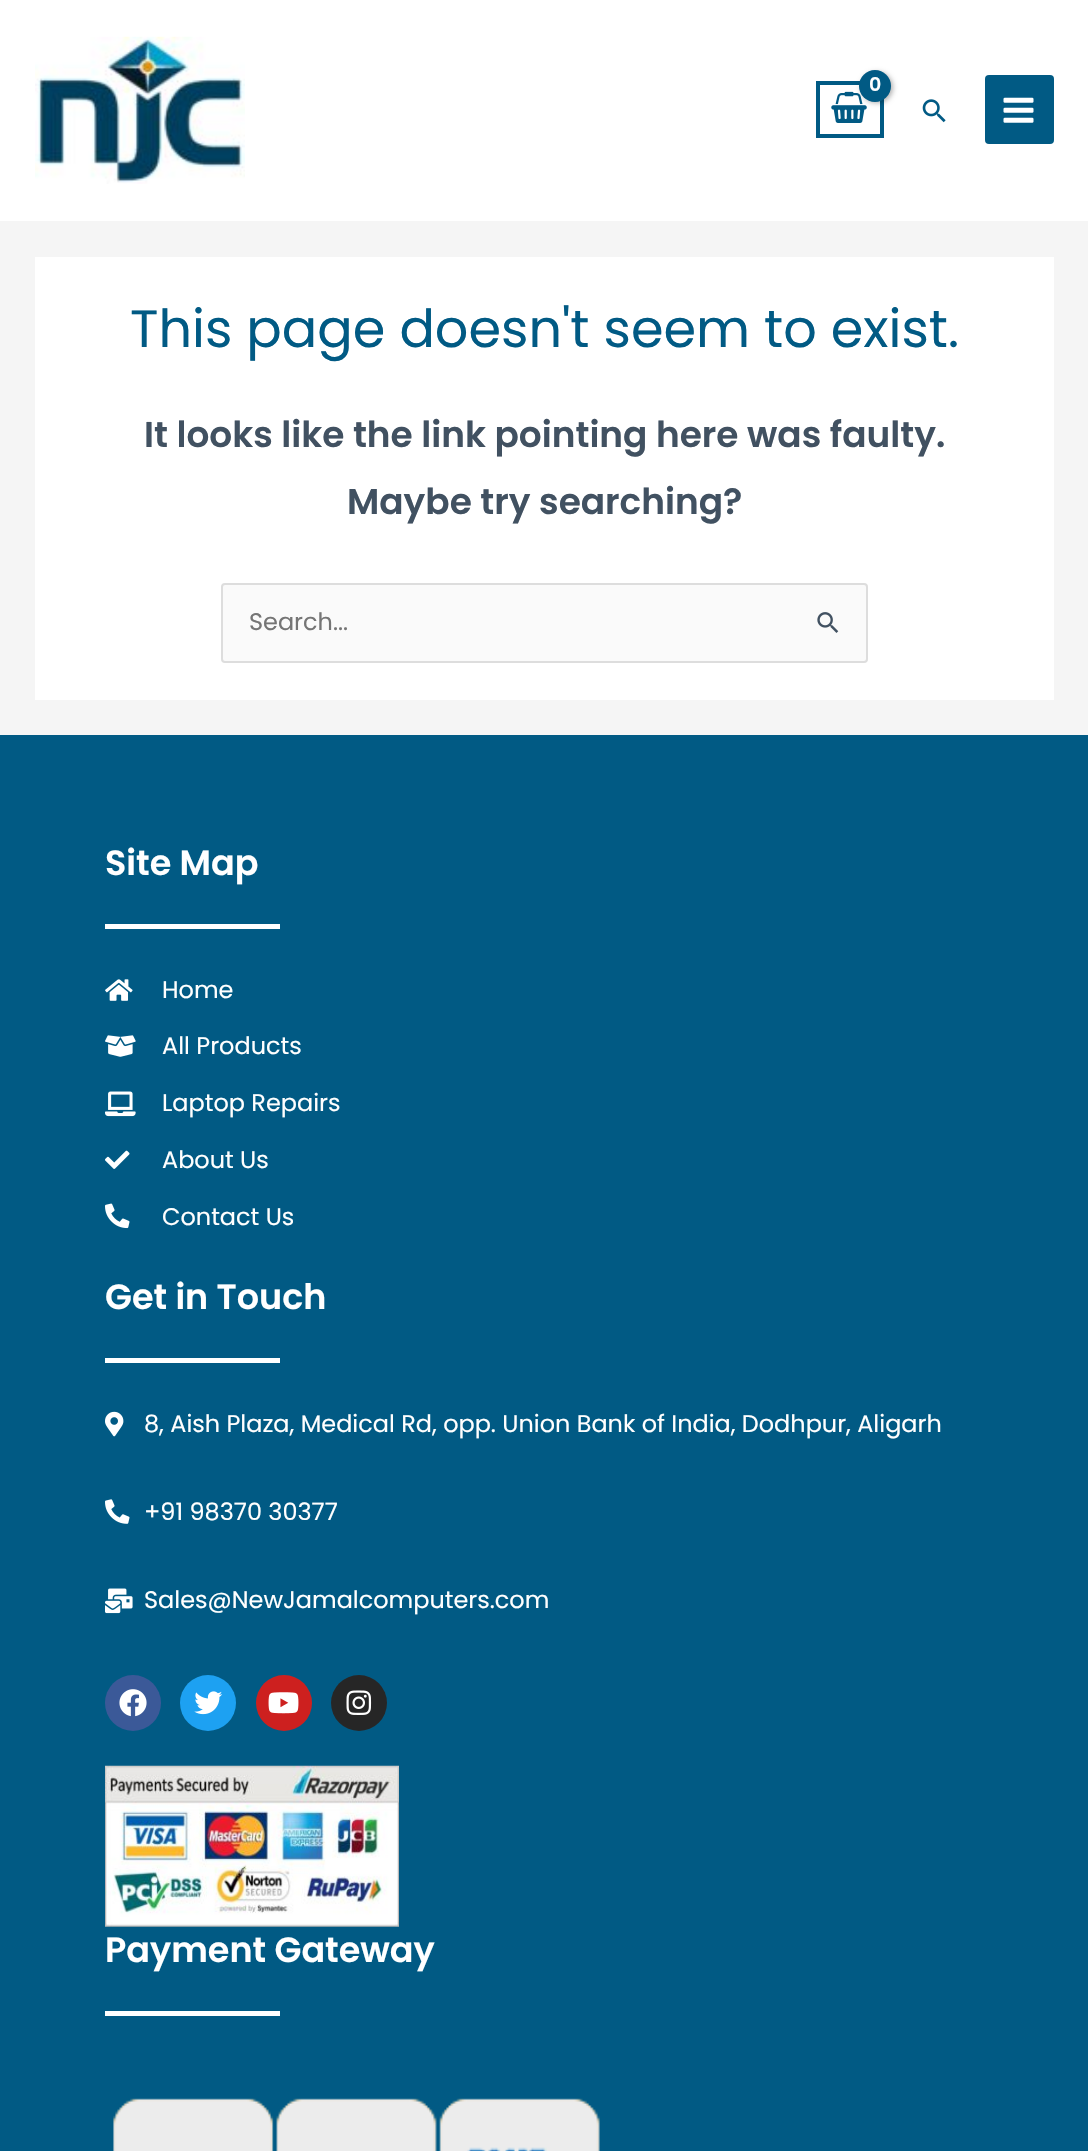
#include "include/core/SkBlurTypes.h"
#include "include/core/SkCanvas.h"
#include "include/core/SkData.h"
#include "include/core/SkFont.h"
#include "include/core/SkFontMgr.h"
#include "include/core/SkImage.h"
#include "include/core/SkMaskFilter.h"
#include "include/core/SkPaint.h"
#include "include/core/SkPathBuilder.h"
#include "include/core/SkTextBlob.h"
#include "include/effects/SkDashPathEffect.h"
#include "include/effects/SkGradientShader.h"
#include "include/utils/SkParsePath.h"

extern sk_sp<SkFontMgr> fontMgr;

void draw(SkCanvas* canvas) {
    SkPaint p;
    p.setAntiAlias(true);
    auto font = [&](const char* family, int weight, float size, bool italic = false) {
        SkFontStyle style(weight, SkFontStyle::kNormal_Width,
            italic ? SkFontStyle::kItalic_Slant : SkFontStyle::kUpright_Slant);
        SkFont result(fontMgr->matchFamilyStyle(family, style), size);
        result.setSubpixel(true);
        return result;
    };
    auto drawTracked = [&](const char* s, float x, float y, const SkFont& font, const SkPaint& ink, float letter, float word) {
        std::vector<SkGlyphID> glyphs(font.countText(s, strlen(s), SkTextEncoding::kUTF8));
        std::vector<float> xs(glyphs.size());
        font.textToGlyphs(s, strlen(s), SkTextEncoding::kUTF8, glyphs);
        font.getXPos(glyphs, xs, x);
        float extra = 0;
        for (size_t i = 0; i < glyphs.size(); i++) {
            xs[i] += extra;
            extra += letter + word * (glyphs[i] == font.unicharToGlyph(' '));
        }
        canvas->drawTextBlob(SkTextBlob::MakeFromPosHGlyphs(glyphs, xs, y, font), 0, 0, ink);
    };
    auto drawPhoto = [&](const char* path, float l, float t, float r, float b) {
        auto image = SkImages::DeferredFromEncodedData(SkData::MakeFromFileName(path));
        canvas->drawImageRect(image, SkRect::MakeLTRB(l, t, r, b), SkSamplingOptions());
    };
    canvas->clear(0xFFF5F5F5);
    p.setColor(0xFFFFFFFF);
    canvas->drawRect(SkRect::MakeLTRB(0, 0, 1088, 221), p);
    drawPhoto("media/1.png", 35, 36, 245, 184);
    p.setStyle(SkPaint::kStroke_Style);
    p.setStrokeWidth(4);
    p.setColor(0xFF015A84);
    canvas->drawRect(SkRect::MakeLTRB(818, 83, 882, 136), p);
    drawPhoto("media/2.png", 831, 91, 867, 123);
    p.setStyle(SkPaint::kFill_Style);
    p.setColor(0x4D000000);
    p.setMaskFilter(SkMaskFilter::MakeBlur(kNormal_SkBlurStyle, 2.5f));
    canvas->drawRoundRect(SkRect::MakeLTRB(861, 72, 893, 103), 15.5f, 15.5f, p);
    p.setMaskFilter(nullptr);
    p.setColor(0xFF015A84);
    canvas->drawCircle(875, 86, 16, p);
    auto font1 = font("Poppins", 600, 19);
    p.setColor(0xFFFFFFFF);
    drawTracked("0", 869, 91, font1, p, -1, 0);
    p.setColor(0xFF015A84);
    canvas->drawRoundRect(SkRect::MakeLTRB(985, 75, 1054, 144), 4, 4, p);
    drawPhoto("media/3.png", 1003, 97, 1034, 123);
    drawPhoto("media/4.png", 922, 99, 946, 123);
    p.setColor(0xFFFFFFFF);
    canvas->drawRect(SkRect::MakeLTRB(35, 257, 1054, 700), p);
    auto font2 = font("Poppins", 400, 52.5f);
    p.setColor(0xFF015A84);
    canvas->drawString("This page doesn't seem to exist.", 130, 347, font2, p);
    auto font3 = font("Poppins", 600, 35.9f);
    p.setColor(0xFF415161);
    canvas->drawString("It looks like the link pointing here was faulty.", 144, 447, font3, p);
    canvas->drawString("Maybe try searching?", 347, 514, font3, p);
    p.setColor(0xFFFAFAFA);
    canvas->drawRoundRect(SkRect::MakeLTRB(222, 584, 867, 662), 3, 3, p);
    p.setStyle(SkPaint::kStroke_Style);
    p.setStrokeWidth(2);
    p.setColor(0xFFDDDDDD);
    canvas->drawRoundRect(SkRect::MakeLTRB(222, 584, 867, 662), 3, 3, p);
    auto font4 = font("Poppins", 400, 23.95f);
    p.setStyle(SkPaint::kFill_Style);
    p.setColor(0xFF757575);
    canvas->drawString("Search...", 249, 630, font4, p);
    drawPhoto("media/5.png", 817, 612, 839, 633);
    p.setColor(0xFF015A84);
    canvas->drawRect(SkRect::MakeLTRB(0, 735, 1088, 2151), p);
    auto font5 = font("Poppins", 600, 35);
    p.setColor(0xFFFFFFFF);
    canvas->drawString("Site Map", 105, 875, font5, p);
    canvas->drawRect(SkRect::MakeLTRB(105, 924, 280, 929), p);
    drawPhoto("media/6.png", 105, 979, 133, 1001);
    canvas->drawString("Home", 162, 998, font4, p);
    drawPhoto("media/7.png", 105, 1035, 136, 1057);
    canvas->drawString("All Products", 162, 1054, font4, p);
    drawPhoto("media/8.png", 105, 1091, 136, 1117);
    canvas->drawString("Laptop Repairs", 162, 1111, font4, p);
    drawPhoto("media/9.png", 105, 1150, 130, 1169);
    canvas->drawString("About Us", 162, 1168, font4, p);
    drawPhoto("media/10.png", 105, 1203, 130, 1229);
    canvas->drawString("Contact Us", 162, 1225, font4, p);
    canvas->drawString("Get in Touch", 105, 1309, font5, p);
    canvas->drawRect(SkRect::MakeLTRB(105, 1358, 280, 1363), p);
    drawPhoto("media/11.png", 105, 1411, 124, 1437);
    canvas->drawString("8, Aish Plaza, Medical Rd, opp. Union Bank of India, Dodhpur, Aligarh", 144, 1432, font4, p);
    drawPhoto("media/12.png", 105, 1499, 130, 1524);
    canvas->drawString("+91 98370 30377", 144, 1520, font4, p);
    drawPhoto("media/13.png", 105, 1588, 133, 1614);
    canvas->drawString("Sales@NewJamalcomputers.com", 144, 1608, font4, p);
    p.setColor(0xFF3B5998);
    canvas->drawCircle(133, 1703, 28, p);
    drawPhoto("media/14.png", 119, 1689, 147, 1717);
    p.setColor(0xFF1DA1F2);
    canvas->drawCircle(208, 1703, 28, p);
    drawPhoto("media/15.png", 194, 1691, 223, 1715);
    p.setColor(0xFFCD201F);
    canvas->drawCircle(284, 1703, 28, p);
    drawPhoto("media/16.png", 268, 1692, 299, 1714);
    p.setColor(0xFF262626);
    canvas->drawCircle(359, 1703, 28, p);
    drawPhoto("media/17.png", 346, 1690, 372, 1715);
    drawPhoto("media/18.png", 105, 1765, 399, 1927);
    p.setColor(0xFFFFFFFF);
    canvas->drawString("Payment Gateway", 105, 1962, font5, p);
    canvas->drawRect(SkRect::MakeLTRB(105, 2011, 280, 2016), p);
    drawPhoto("media/19.png", 113, 2098, 600, 2151);
}
